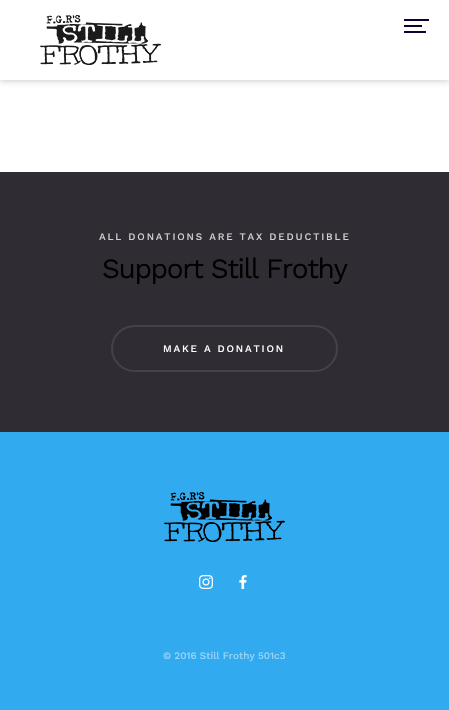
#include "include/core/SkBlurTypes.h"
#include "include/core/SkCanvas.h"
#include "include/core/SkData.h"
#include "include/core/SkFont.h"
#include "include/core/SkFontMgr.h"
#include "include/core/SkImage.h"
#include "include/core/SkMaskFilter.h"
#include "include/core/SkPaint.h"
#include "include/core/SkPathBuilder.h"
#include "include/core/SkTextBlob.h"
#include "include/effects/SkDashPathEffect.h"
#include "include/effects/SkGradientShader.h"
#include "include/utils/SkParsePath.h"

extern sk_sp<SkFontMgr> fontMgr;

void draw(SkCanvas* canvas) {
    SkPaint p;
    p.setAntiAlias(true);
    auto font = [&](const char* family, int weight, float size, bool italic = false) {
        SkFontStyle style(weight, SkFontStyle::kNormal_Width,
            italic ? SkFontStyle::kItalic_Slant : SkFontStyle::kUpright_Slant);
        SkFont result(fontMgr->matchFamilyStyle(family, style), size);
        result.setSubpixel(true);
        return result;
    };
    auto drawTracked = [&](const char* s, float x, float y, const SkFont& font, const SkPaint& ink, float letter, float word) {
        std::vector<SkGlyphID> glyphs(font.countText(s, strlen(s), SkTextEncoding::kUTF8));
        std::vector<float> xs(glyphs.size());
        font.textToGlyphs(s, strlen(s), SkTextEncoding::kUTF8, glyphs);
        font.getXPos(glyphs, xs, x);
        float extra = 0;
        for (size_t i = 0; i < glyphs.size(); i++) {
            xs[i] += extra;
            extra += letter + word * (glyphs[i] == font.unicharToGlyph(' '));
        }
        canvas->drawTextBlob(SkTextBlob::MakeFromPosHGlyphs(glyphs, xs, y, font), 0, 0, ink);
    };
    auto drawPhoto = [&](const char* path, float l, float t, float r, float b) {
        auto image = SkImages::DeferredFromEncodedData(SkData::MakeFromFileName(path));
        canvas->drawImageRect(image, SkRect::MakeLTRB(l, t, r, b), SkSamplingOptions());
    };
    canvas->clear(0xFFFFFFFF);
    p.setColor(0x33000000);
    p.setMaskFilter(SkMaskFilter::MakeBlur(kNormal_SkBlurStyle, 3));
    canvas->drawRect(SkRect::MakeLTRB(0, 1, 449, 81), p);
    p.setMaskFilter(nullptr);
    p.setColor(0xFFFFFFFF);
    canvas->drawRect(SkRect::MakeLTRB(0, 0, 449, 80), p);
    drawPhoto("media/1.png", 40, 15, 161, 65);
    {
        const struct { float l, t, r, b; SkColor color; } items[] = {
            {404, 19, 429, 21, 0xFF110032},
            {404, 25, 422, 27, 0xFF110032},
            {404, 31, 426, 33, 0xFF110032},
            {0, 172, 449, 432, 0xFF2F2C34},
        };
        for (auto [l, t, r, b, color] : items) {
            p.setColor(color);
            canvas->drawRect(SkRect::MakeLTRB(l, t, r, b), p);
        }
    }
    auto font1 = font("Work Sans", 500, 10);
    p.setColor(0xFFD1D1D1);
    drawTracked("ALL DONATIONS ARE TAX DEDUCTIBLE", 99, 240, font1, p, 1.85f, 0);
    auto font2 = font("Work Sans", 400, 28);
    p.setColor(0xFF000000);
    drawTracked("Support Still Frothy", 102, 278, font2, p, -1.4f, 0);
    p.setStyle(SkPaint::kStroke_Style);
    p.setStrokeWidth(2);
    p.setColor(0xFF444148);
    canvas->drawRoundRect(SkRect::MakeLTRB(112, 326, 337, 371), 22.5f, 22.5f, p);
    p.setStyle(SkPaint::kFill_Style);
    p.setColor(0xFFFFFFFF);
    drawTracked("MAKE A DONATION", 163, 352, font1, p, 1.85f, 0);
    p.setColor(0xFF32AAF0);
    canvas->drawRect(SkRect::MakeLTRB(0, 432, 449, 710), p);
    drawPhoto("media/2.png", 164, 492, 285, 542);
    drawPhoto("media/3.png", 199, 575, 213, 589);
    drawPhoto("media/4.png", 239, 575, 247, 589);
    p.setColor(0xFF99D5F8);
    canvas->drawString("© 2016 Still Frothy 501c3", 163, 659, font1, p);
}
